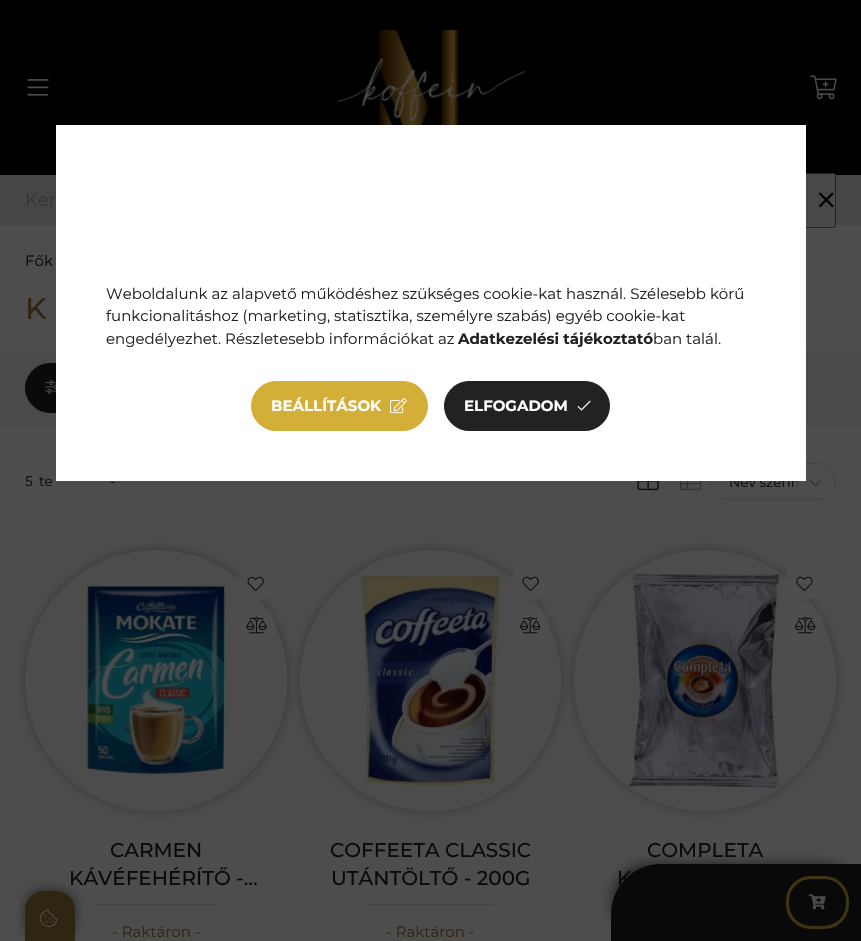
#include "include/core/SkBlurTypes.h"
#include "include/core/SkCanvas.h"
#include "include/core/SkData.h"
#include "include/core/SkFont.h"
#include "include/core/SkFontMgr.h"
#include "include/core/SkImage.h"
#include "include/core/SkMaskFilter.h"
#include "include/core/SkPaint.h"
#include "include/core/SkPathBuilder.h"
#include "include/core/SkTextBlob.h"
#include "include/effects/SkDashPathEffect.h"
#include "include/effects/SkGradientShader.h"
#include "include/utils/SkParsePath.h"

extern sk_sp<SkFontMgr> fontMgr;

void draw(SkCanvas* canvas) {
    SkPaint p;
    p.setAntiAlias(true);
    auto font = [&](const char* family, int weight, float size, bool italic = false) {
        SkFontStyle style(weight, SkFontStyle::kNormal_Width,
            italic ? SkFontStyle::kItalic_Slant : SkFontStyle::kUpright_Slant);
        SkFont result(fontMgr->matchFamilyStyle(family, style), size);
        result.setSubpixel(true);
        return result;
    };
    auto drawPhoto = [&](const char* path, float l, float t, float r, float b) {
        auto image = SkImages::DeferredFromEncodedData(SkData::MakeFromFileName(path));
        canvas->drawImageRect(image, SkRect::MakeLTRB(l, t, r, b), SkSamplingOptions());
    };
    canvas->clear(0xFF4D4D4D);
    p.setColor(0xFF000000);
    canvas->drawRect(SkRect::MakeLTRB(0, 0, 861, 175), p);
    drawPhoto("media/1.png", 27, 79, 49, 96);
    drawPhoto("media/2.png", 337, 29, 525, 125);
    drawPhoto("media/3.png", 810, 75, 837, 100);
    p.setColor(0xFF464646);
    canvas->drawRect(SkRect::MakeLTRB(0, 175, 861, 225), p);
    auto font1 = font("Montserrat", 400, 18);
    p.setColor(0xFF333333);
    canvas->drawString("Ker", 25, 206, font1, p);
    p.setColor(0xFF484848);
    canvas->drawRoundRect(SkRect::MakeLTRB(781.5f, 173.5f, 835.5f, 227.5f), 2, 2, p);
    p.setStyle(SkPaint::kStroke_Style);
    p.setStrokeWidth(1);
    p.setColor(0xFF232323);
    canvas->drawRoundRect(SkRect::MakeLTRB(781.5f, 173.5f, 835.5f, 227.5f), 2, 2, p);
    drawPhoto("media/4.png", 818, 192, 834, 208);
    auto font2 = font("Montserrat", 400, 15);
    p.setStyle(SkPaint::kFill_Style);
    p.setColor(0xFF0A0A0A);
    canvas->drawString("Fők", 25, 266, font2, p);
    auto font3 = font("Montserrat", 500, 30);
    p.setColor(0xFF302511);
    canvas->drawString("K", 25, 319, font3, p);
    p.setColor(0xFF4A4A4A);
    canvas->drawRect(SkRect::MakeLTRB(0, 350, 861, 425), p);
    p.setColor(0xFF0A0A0A);
    canvas->drawRoundRect(SkRect::MakeLTRB(25.5f, 363.5f, 150.5f, 412.5f), 24.5f, 24.5f, p);
    p.setStyle(SkPaint::kStroke_Style);
    canvas->drawRoundRect(SkRect::MakeLTRB(25.5f, 363.5f, 150.5f, 412.5f), 24.5f, 24.5f, p);
    drawPhoto("media/5.png", 45, 380, 56, 394);
    auto font4 = font("Montserrat", 400, 13.75f);
    p.setStyle(SkPaint::kFill_Style);
    {
        const struct { const char* s; float x, y; } items[] = {
            {"5", 25, 486},
            {"te", 39, 486},
            {"-", 110, 486},
        };
        for (auto [s, x, y] : items) {
            canvas->drawString(s, x, y, font4, p);
        }
    }
    drawPhoto("media/6.png", 637, 481, 659, 491);
    drawPhoto("media/7.png", 680, 481, 702, 491);
    p.setStyle(SkPaint::kStroke_Style);
    p.setColor(0xFF424242);
    canvas->drawRoundRect(SkRect::MakeLTRB(709.5f, 463.5f, 835.5f, 499.5f), 18, 18, p);
    canvas->save();
    canvas->clipRect(SkRect::MakeLTRB(729, 471, 798, 493));
    p.setStyle(SkPaint::kFill_Style);
    p.setColor(0xFF0A0A0A);
    canvas->drawString("Név szerin", 729, 487, font4, p);
    canvas->restore();
    drawPhoto("media/8.png", 810, 480, 821, 487);
    p.setColor(0x4D000000);
    p.setMaskFilter(SkMaskFilter::MakeBlur(kNormal_SkBlurStyle, 6));
    canvas->drawRoundRect(SkRect::MakeLTRB(25, 550, 288, 811), 130.5f, 130.5f, p);
    p.setMaskFilter(nullptr);
    drawPhoto("media/9.png", 25, 550, 288, 811);
    p.setColor(0xCC4D4D4D);
    canvas->drawCircle(256.5f, 581.5f, 18.5f, p);
    drawPhoto("media/10.png", 247, 576, 264, 591);
    canvas->drawRoundRect(SkRect::MakeLTRB(238, 606, 275, 644), 18.5f, 18.5f, p);
    drawPhoto("media/11.png", 246, 617, 267, 634);
    auto font5 = font("Montserrat", 500, 20);
    p.setColor(0xFF0A0A0A);
    canvas->drawString("CARMEN", 110, 857, font5, p);
    canvas->drawString("KÁVÉFEHÉRÍTŐ -…", 69, 885, font5, p);
    p.setColor(0xFF424242);
    canvas->drawRect(SkRect::MakeLTRB(94, 904, 219, 905), p);
    p.setColor(0xFF302511);
    canvas->drawString("- Raktáron -", 112, 937, font2, p);
    p.setColor(0x4D000000);
    p.setMaskFilter(SkMaskFilter::MakeBlur(kNormal_SkBlurStyle, 6));
    canvas->drawRoundRect(SkRect::MakeLTRB(300, 550, 561, 811), 130.5f, 130.5f, p);
    p.setMaskFilter(nullptr);
    drawPhoto("media/12.png", 300, 550, 561, 811);
    p.setColor(0xCC4D4D4D);
    canvas->drawRoundRect(SkRect::MakeLTRB(511, 563, 549, 600), 18.5f, 18.5f, p);
    drawPhoto("media/13.png", 522, 576, 539, 591);
    canvas->drawCircle(530, 625, 19, p);
    drawPhoto("media/14.png", 520, 617, 541, 634);
    p.setColor(0xFF0A0A0A);
    canvas->drawString("COFFEETA CLASSIC", 330, 857, font5, p);
    canvas->drawString("UTÁNTÖLTŐ - 200G", 331, 885, font5, p);
    p.setColor(0xFF424242);
    canvas->drawRect(SkRect::MakeLTRB(368, 904, 493, 905), p);
    p.setColor(0xFF302511);
    canvas->drawString("- Raktáron -", 386, 937, font2, p);
    p.setColor(0x4D000000);
    p.setMaskFilter(SkMaskFilter::MakeBlur(kNormal_SkBlurStyle, 6));
    canvas->drawRoundRect(SkRect::MakeLTRB(574, 550, 836, 811), 130.5f, 130.5f, p);
    p.setMaskFilter(nullptr);
    drawPhoto("media/15.png", 574, 550, 836, 811);
    p.setColor(0xCC4D4D4D);
    canvas->drawRoundRect(SkRect::MakeLTRB(786, 563, 824, 600), 18.5f, 18.5f, p);
    drawPhoto("media/16.png", 796, 576, 813, 591);
    canvas->drawCircle(805, 625, 19, p);
    drawPhoto("media/14.png", 795, 617, 816, 634);
    p.setColor(0xFF0A0A0A);
    canvas->drawString("COMPLETA", 647, 857, font5, p);
    canvas->drawString("K", 617, 885, font5, p);
    p.setColor(0x80000000);
    p.setMaskFilter(SkMaskFilter::MakeBlur(kNormal_SkBlurStyle, 6));
    canvas->drawRoundRect(SkRect::MakeLTRB(25, 890, 75, 940), 19, 19, p);
    p.setMaskFilter(nullptr);
    p.setColor(0xFF302511);
    canvas->drawPath(SkPathBuilder().moveTo(44, 891).lineTo(56, 891).cubicTo(66.5f, 891, 75, 899.5f, 75, 910).lineTo(75, 941).lineTo(25, 941).lineTo(25, 910).cubicTo(25, 899.5f, 33.5f, 891, 44, 891).close().detach(), p);
    drawPhoto("media/17.png", 40, 909, 58, 928);
    p.setColor(0xFFFFFFFF);
    canvas->drawRect(SkRect::MakeLTRB(56, 125, 806, 481), p);
    p.setColor(0xFF222222);
    {
        const struct { const char* s; float x, y; } items[] = {
            {"Weboldalunk az alapvető működéshez szükséges cookie-kat használ. Szélesebb körű", 106, 299},
            {"funkcionalitáshoz (marketing, statisztika, személyre szabás) egyéb cookie-kat", 106, 321},
            {"engedélyezhet. Részletesebb információkat az", 106, 344},
        };
        for (auto [s, x, y] : items) {
            canvas->drawString(s, x, y, font2, p);
        }
    }
    auto font6 = font("Montserrat", 700, 15);
    canvas->drawString("Adatkezelési tájékoztató", 458, 344, font6, p);
    canvas->drawString("ban talál.", 653, 344, font2, p);
    p.setColor(0xFFD4AF37);
    canvas->drawRoundRect(SkRect::MakeLTRB(251.5f, 381.5f, 427.5f, 430.5f), 24.5f, 24.5f, p);
    p.setStyle(SkPaint::kStroke_Style);
    canvas->drawRoundRect(SkRect::MakeLTRB(251.5f, 381.5f, 427.5f, 430.5f), 24.5f, 24.5f, p);
    p.setStyle(SkPaint::kFill_Style);
    p.setColor(0xFFFFFFFF);
    canvas->drawString("BEÁLLÍTÁSOK", 271, 411, font6, p);
    drawPhoto("media/18.png", 390, 398, 407, 414);
    p.setColor(0xFF222222);
    canvas->drawRoundRect(SkRect::MakeLTRB(444.5f, 381.5f, 609.5f, 430.5f), 24.5f, 24.5f, p);
    p.setStyle(SkPaint::kStroke_Style);
    canvas->drawRoundRect(SkRect::MakeLTRB(444.5f, 381.5f, 609.5f, 430.5f), 24.5f, 24.5f, p);
    p.setStyle(SkPaint::kFill_Style);
    p.setColor(0xFFFFFFFF);
    canvas->drawString("ELFOGADOM", 464, 411, font6, p);
    drawPhoto("media/19.png", 577, 400, 591, 411);
    p.setColor(0x80000000);
    p.setMaskFilter(SkMaskFilter::MakeBlur(kNormal_SkBlurStyle, 6));
    canvas->drawRoundRect(SkRect::MakeLTRB(611, 863, 861, 940), 50, 50, p);
    p.setMaskFilter(nullptr);
    p.setColor(0xFF090909);
    canvas->drawPath(SkPathBuilder().moveTo(661, 864).lineTo(861, 864).lineTo(861, 941).lineTo(611, 941).lineTo(611, 914).cubicTo(611, 886.5f, 633.5f, 864, 661, 864).close().detach(), p);
    p.setStyle(SkPaint::kStroke_Style);
    p.setStrokeWidth(3);
    p.setColor(0xFF403511);
    canvas->drawRoundRect(SkRect::MakeLTRB(787.5f, 877.5f, 847.5f, 927.5f), 23.5f, 23.5f, p);
    drawPhoto("media/20.png", 808, 894, 826, 910);
}
